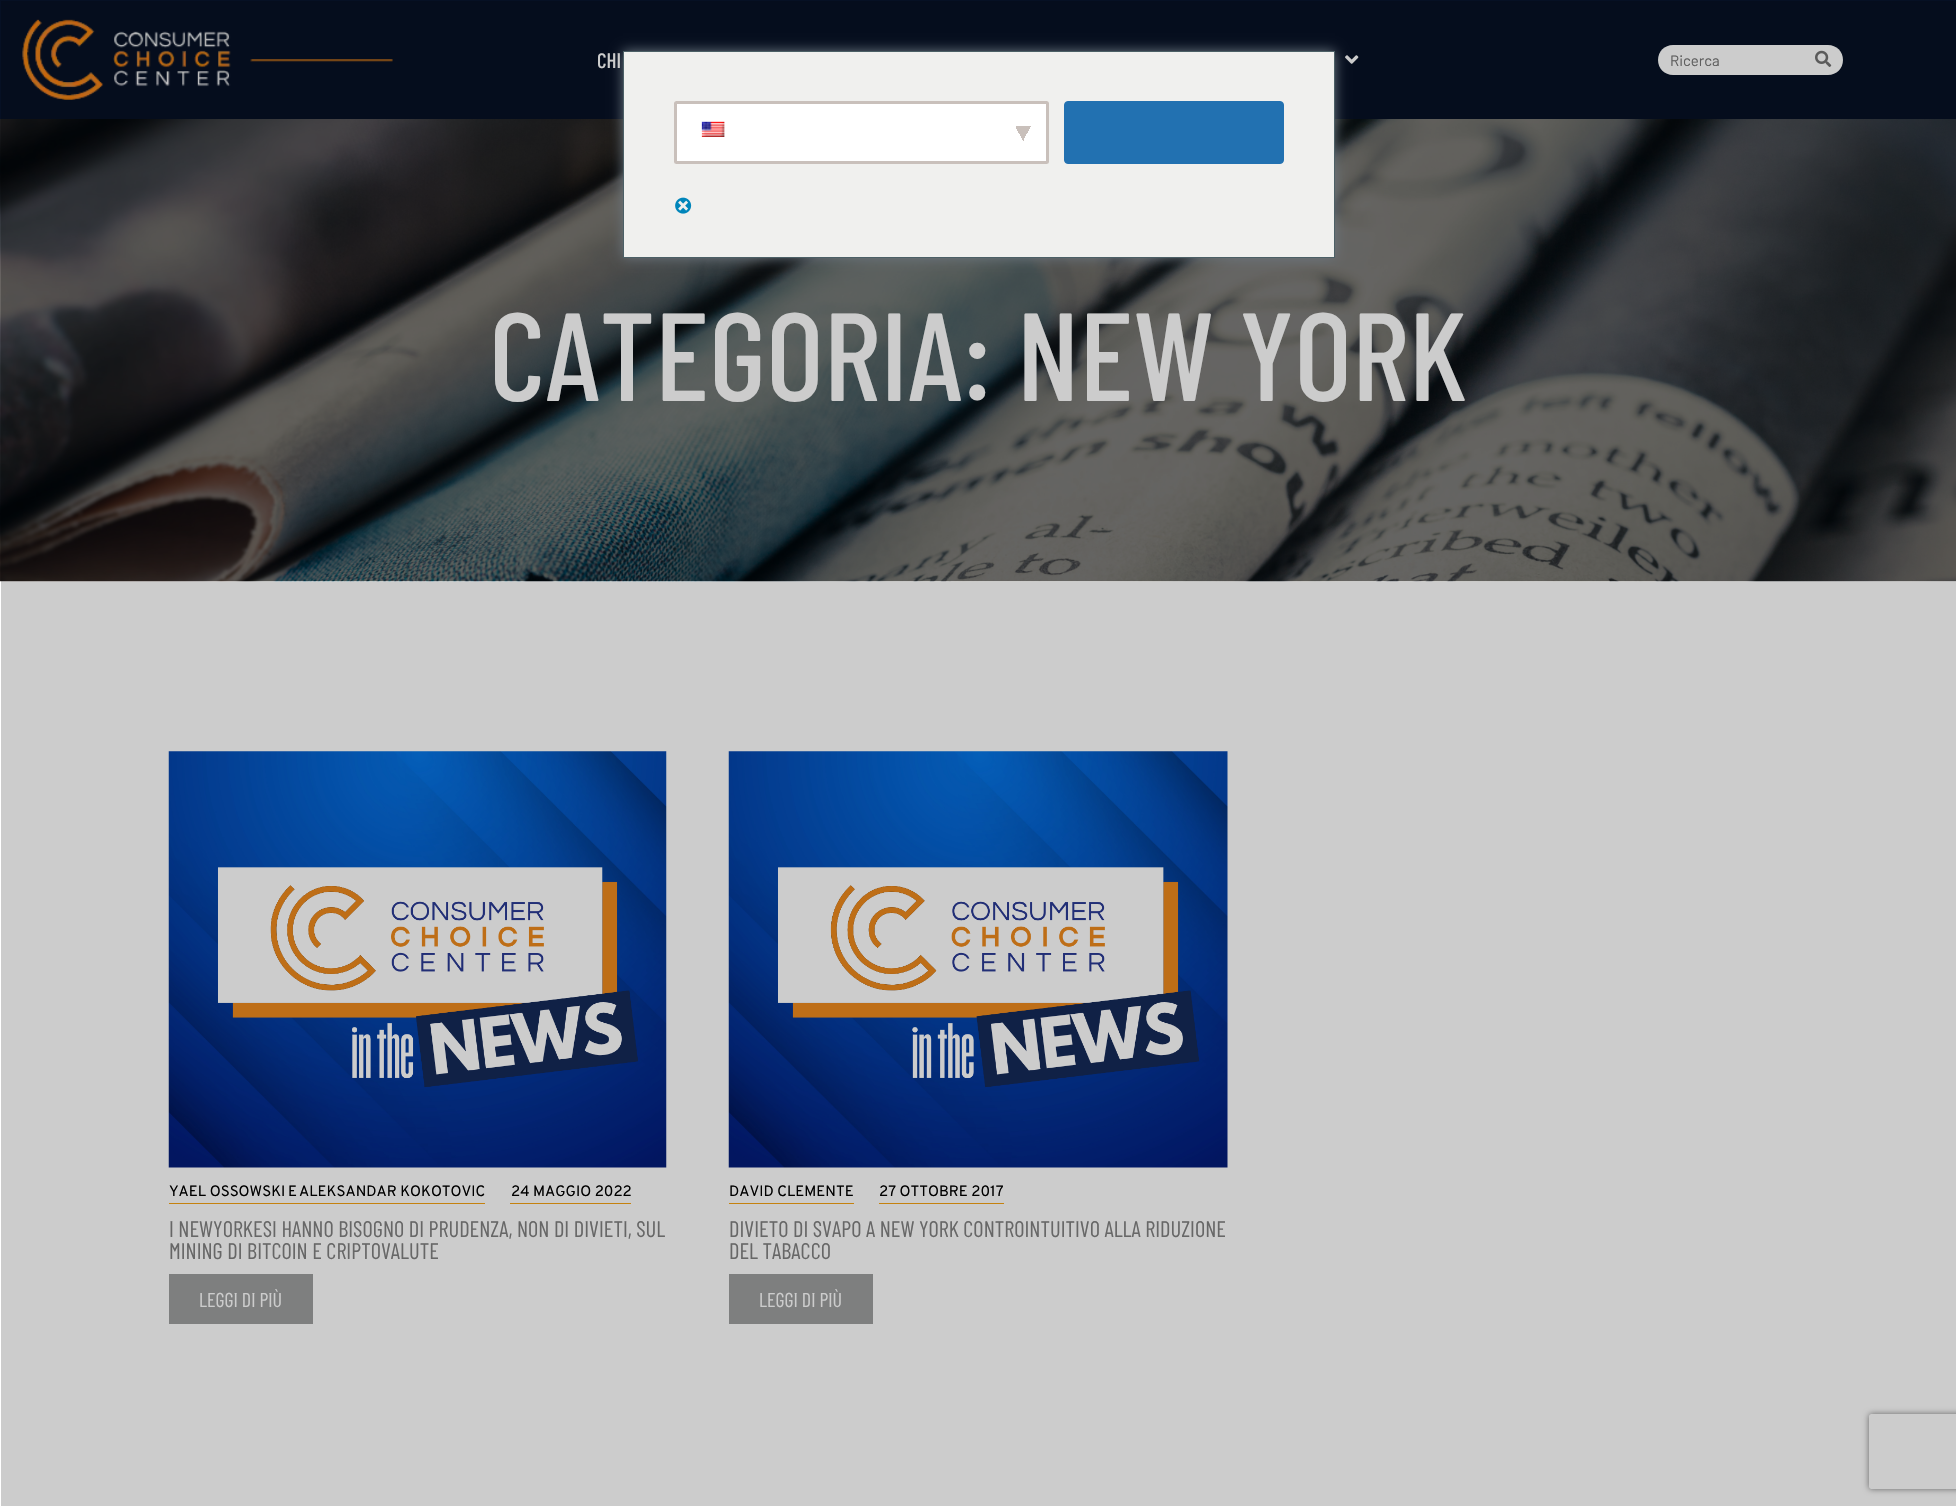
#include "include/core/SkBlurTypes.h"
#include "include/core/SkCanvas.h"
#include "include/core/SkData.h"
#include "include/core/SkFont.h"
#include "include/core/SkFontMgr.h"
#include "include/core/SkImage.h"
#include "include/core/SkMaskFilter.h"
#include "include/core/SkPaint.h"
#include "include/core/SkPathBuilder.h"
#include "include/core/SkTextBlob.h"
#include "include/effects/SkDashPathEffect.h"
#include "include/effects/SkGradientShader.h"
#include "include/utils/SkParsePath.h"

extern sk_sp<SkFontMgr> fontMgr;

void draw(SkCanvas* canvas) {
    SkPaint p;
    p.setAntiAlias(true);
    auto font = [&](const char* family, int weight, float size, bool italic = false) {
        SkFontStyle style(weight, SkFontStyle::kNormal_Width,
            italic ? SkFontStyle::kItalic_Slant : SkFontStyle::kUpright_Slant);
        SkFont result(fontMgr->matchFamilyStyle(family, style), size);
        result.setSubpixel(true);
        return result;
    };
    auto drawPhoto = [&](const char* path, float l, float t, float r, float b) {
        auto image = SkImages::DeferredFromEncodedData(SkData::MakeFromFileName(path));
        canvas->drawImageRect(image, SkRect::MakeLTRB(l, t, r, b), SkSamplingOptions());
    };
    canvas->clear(0xFFFFFFFF);
    {
        const struct { float l, t, r, b; SkColor color; } items[] = {
            {1, 581, 1956, 1506, 0xFFCCCCCC},
            {0, 0, 1956, 119, 0xFF061024},
            {1, 1, 1956, 119, 0xFF050D1D},
        };
        for (auto [l, t, r, b, color] : items) {
            p.setColor(color);
            canvas->drawRect(SkRect::MakeLTRB(l, t, r, b), p);
        }
    }
    drawPhoto("media/4.png", 1345, 55, 1359, 64);
    drawPhoto("media/6.png", 0, 119, 1956, 582);
    p.setColor(0xFF6C7781);
    p.setMaskFilter(SkMaskFilter::MakeBlur(kNormal_SkBlurStyle, 6));
    canvas->drawRect(SkRect::MakeLTRB(623, 51, 1335, 258), p);
    p.setMaskFilter(nullptr);
    p.setColor(0xFFF0F0EE);
    canvas->drawRect(SkRect::MakeLTRB(623.5f, 51.5f, 1334.5f, 257.5f), p);
    p.setStyle(SkPaint::kStroke_Style);
    p.setStrokeWidth(1);
    p.setColor(0xFF4C6066);
    canvas->drawRect(SkRect::MakeLTRB(623.5f, 51.5f, 1334.5f, 257.5f), p);
    p.setStyle(SkPaint::kFill_Style);
    p.setColor(0xFFFFFFFF);
    canvas->drawRoundRect(SkRect::MakeLTRB(674, 101, 1049, 164), 2.5f, 2.5f, p);
    {
        const SkColor colors[] = {0xFFC9C0BB, 0xFFFFFFFF};
        const float stops[] = {0.5f, 0.5f};
        const SkPoint ends[] = {{1021, 130}, {1033, 137}};
        p.setShader(SkGradientShader::MakeLinear(ends, colors, stops, 2, SkTileMode::kClamp));
        p.setAlpha(255);
    }
    canvas->drawRect(SkRect::MakeLTRB(1024, 126, 1031, 141), p);
    {
        const SkColor colors[] = {0xFFFFFFFF, 0xFFC9C0BB};
        const float stops[] = {0.5f, 0.5f};
        const SkPoint ends[] = {{1013, 137}, {1025, 130}};
        p.setShader(SkGradientShader::MakeLinear(ends, colors, stops, 2, SkTileMode::kClamp));
        p.setAlpha(255);
    }
    canvas->drawRect(SkRect::MakeLTRB(1016, 126, 1024, 141), p);
    p.setStyle(SkPaint::kStroke_Style);
    p.setStrokeWidth(3);
    p.setShader(nullptr);
    p.setColor(0xFFC9C0BB);
    canvas->drawRoundRect(SkRect::MakeLTRB(675.5f, 102.5f, 1047.5f, 162.5f), 1, 1, p);
    drawPhoto("media/1.png", 701, 121, 725, 137);
    p.setStyle(SkPaint::kFill_Style);
    p.setColor(0xFF2271B1);
    canvas->drawRoundRect(SkRect::MakeLTRB(1064.5f, 101.5f, 1283.5f, 163.5f), 3.5f, 3.5f, p);
    p.setStyle(SkPaint::kStroke_Style);
    p.setStrokeWidth(1);
    canvas->drawRoundRect(SkRect::MakeLTRB(1064.5f, 101.5f, 1283.5f, 163.5f), 3.5f, 3.5f, p);
    drawPhoto("media/2.png", 675, 197, 692, 214);
    drawPhoto("media/3.png", 22, 19, 393, 100);
    auto font1 = font("Barlow Condensed", 500, 21);
    p.setStyle(SkPaint::kFill_Style);
    p.setColor(0xFFCCCCCC);
    canvas->drawString("CHI", 597, 68, font1, p);
    canvas->drawPath(SkPathBuilder().moveTo(1673, 45).lineTo(1813, 45).lineTo(1813, 75).lineTo(1673, 75).cubicTo(1664.5f, 75, 1658, 68.5f, 1658, 60).cubicTo(1658, 51.5f, 1664.5f, 45, 1673, 45).close().detach(), p);
    auto font2 = font("Barlow", 400, 15);
    p.setColor(0xFF5E5E5E);
    canvas->drawString("Ricerca", 1670, 66, font2, p);
    p.setColor(0xFFCCCCCC);
    canvas->drawPath(SkPathBuilder().moveTo(1813, 45).lineTo(1828, 45).cubicTo(1836.5f, 45, 1843, 51.5f, 1843, 60).cubicTo(1843, 68.5f, 1836.5f, 75, 1828, 75).lineTo(1813, 75).close().detach(), p);
    drawPhoto("media/5.png", 1815, 50, 1832, 67);
    auto font3 = font("Barlow Condensed", 500, 125);
    canvas->drawString("CATEGORIA: NEW YORK", 489, 401, font3, p);
    drawPhoto("media/7.png", 168, 751, 667, 1168);
    p.setColor(0xFFC5820F);
    canvas->drawRect(SkRect::MakeLTRB(169, 1203, 485, 1204), p);
    auto font4 = font("Overpass", 400, 15);
    p.setColor(0xFF000000);
    {
        const struct { const char* s; float x, y; } items[] = {
            {"YAEL OSSOWSKI", 169, 1196},
            {"E", 288, 1196},
            {"ALEKSANDAR KOKOTOVIC", 299, 1196},
        };
        for (auto [s, x, y] : items) {
            canvas->drawString(s, x, y, font4, p);
        }
    }
    p.setColor(0xFFC5820F);
    canvas->drawRect(SkRect::MakeLTRB(510, 1203, 631, 1204), p);
    p.setColor(0xFF000000);
    canvas->drawString("24 MAGGIO 2022", 511, 1196, font4, p);
    auto font5 = font("Barlow Condensed", 400, 22.5f);
    p.setColor(0xFF676767);
    canvas->drawString("I NEWYORKESI HANNO BISOGNO DI PRUDENZA, NON DI DIVIETI, SUL", 169, 1237, font5, p);
    canvas->drawString("MINING DI BITCOIN E CRIPTOVALUTE", 169, 1259, font5, p);
    p.setColor(0xFF7E7F7F);
    canvas->drawRect(SkRect::MakeLTRB(169, 1274, 313, 1324), p);
    auto font6 = font("Barlow Condensed", 400, 20);
    p.setColor(0xFFCCCCCC);
    canvas->drawString("LEGGI DI PIÙ", 199, 1307, font6, p);
    drawPhoto("media/8.png", 728, 751, 1228, 1168);
    p.setColor(0xFFC5820F);
    canvas->drawRect(SkRect::MakeLTRB(729, 1203, 854, 1204), p);
    p.setColor(0xFF000000);
    canvas->drawString("DAVID CLEMENTE", 729, 1196, font4, p);
    p.setColor(0xFFC5820F);
    canvas->drawRect(SkRect::MakeLTRB(879, 1203, 1004, 1204), p);
    p.setColor(0xFF000000);
    canvas->drawString("27 OTTOBRE 2017", 879, 1196, font4, p);
    p.setColor(0xFF676767);
    canvas->drawString("DIVIETO DI SVAPO A NEW YORK CONTROINTUITIVO ALLA RIDUZIONE", 729, 1237, font5, p);
    canvas->drawString("DEL TABACCO", 729, 1259, font5, p);
    p.setColor(0xFF7E7F7F);
    canvas->drawRect(SkRect::MakeLTRB(729, 1274, 873, 1324), p);
    p.setColor(0xFFCCCCCC);
    canvas->drawString("LEGGI DI PIÙ", 759, 1307, font6, p);
    canvas->save();
    canvas->clipPath(SkPathBuilder(SkPathFillType::kEvenOdd).moveTo(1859, 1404).lineTo(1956, 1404).lineTo(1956, 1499).lineTo(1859, 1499).close().moveTo(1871.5f, 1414).lineTo(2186.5f, 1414).cubicTo(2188, 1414, 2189, 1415, 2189, 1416.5f).lineTo(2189, 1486.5f).cubicTo(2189, 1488, 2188, 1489, 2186.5f, 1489).lineTo(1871.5f, 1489).cubicTo(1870, 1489, 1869, 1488, 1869, 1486.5f).lineTo(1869, 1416.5f).cubicTo(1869, 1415, 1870, 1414, 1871.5f, 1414).close().detach(), true);
    p.setColor(0xFF666666);
    p.setMaskFilter(SkMaskFilter::MakeBlur(kNormal_SkBlurStyle, 3));
    canvas->drawRoundRect(SkRect::MakeLTRB(1869, 1414, 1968, 1489), 2.5f, 2.5f, p);
    p.setMaskFilter(nullptr);
    canvas->restore();
}
